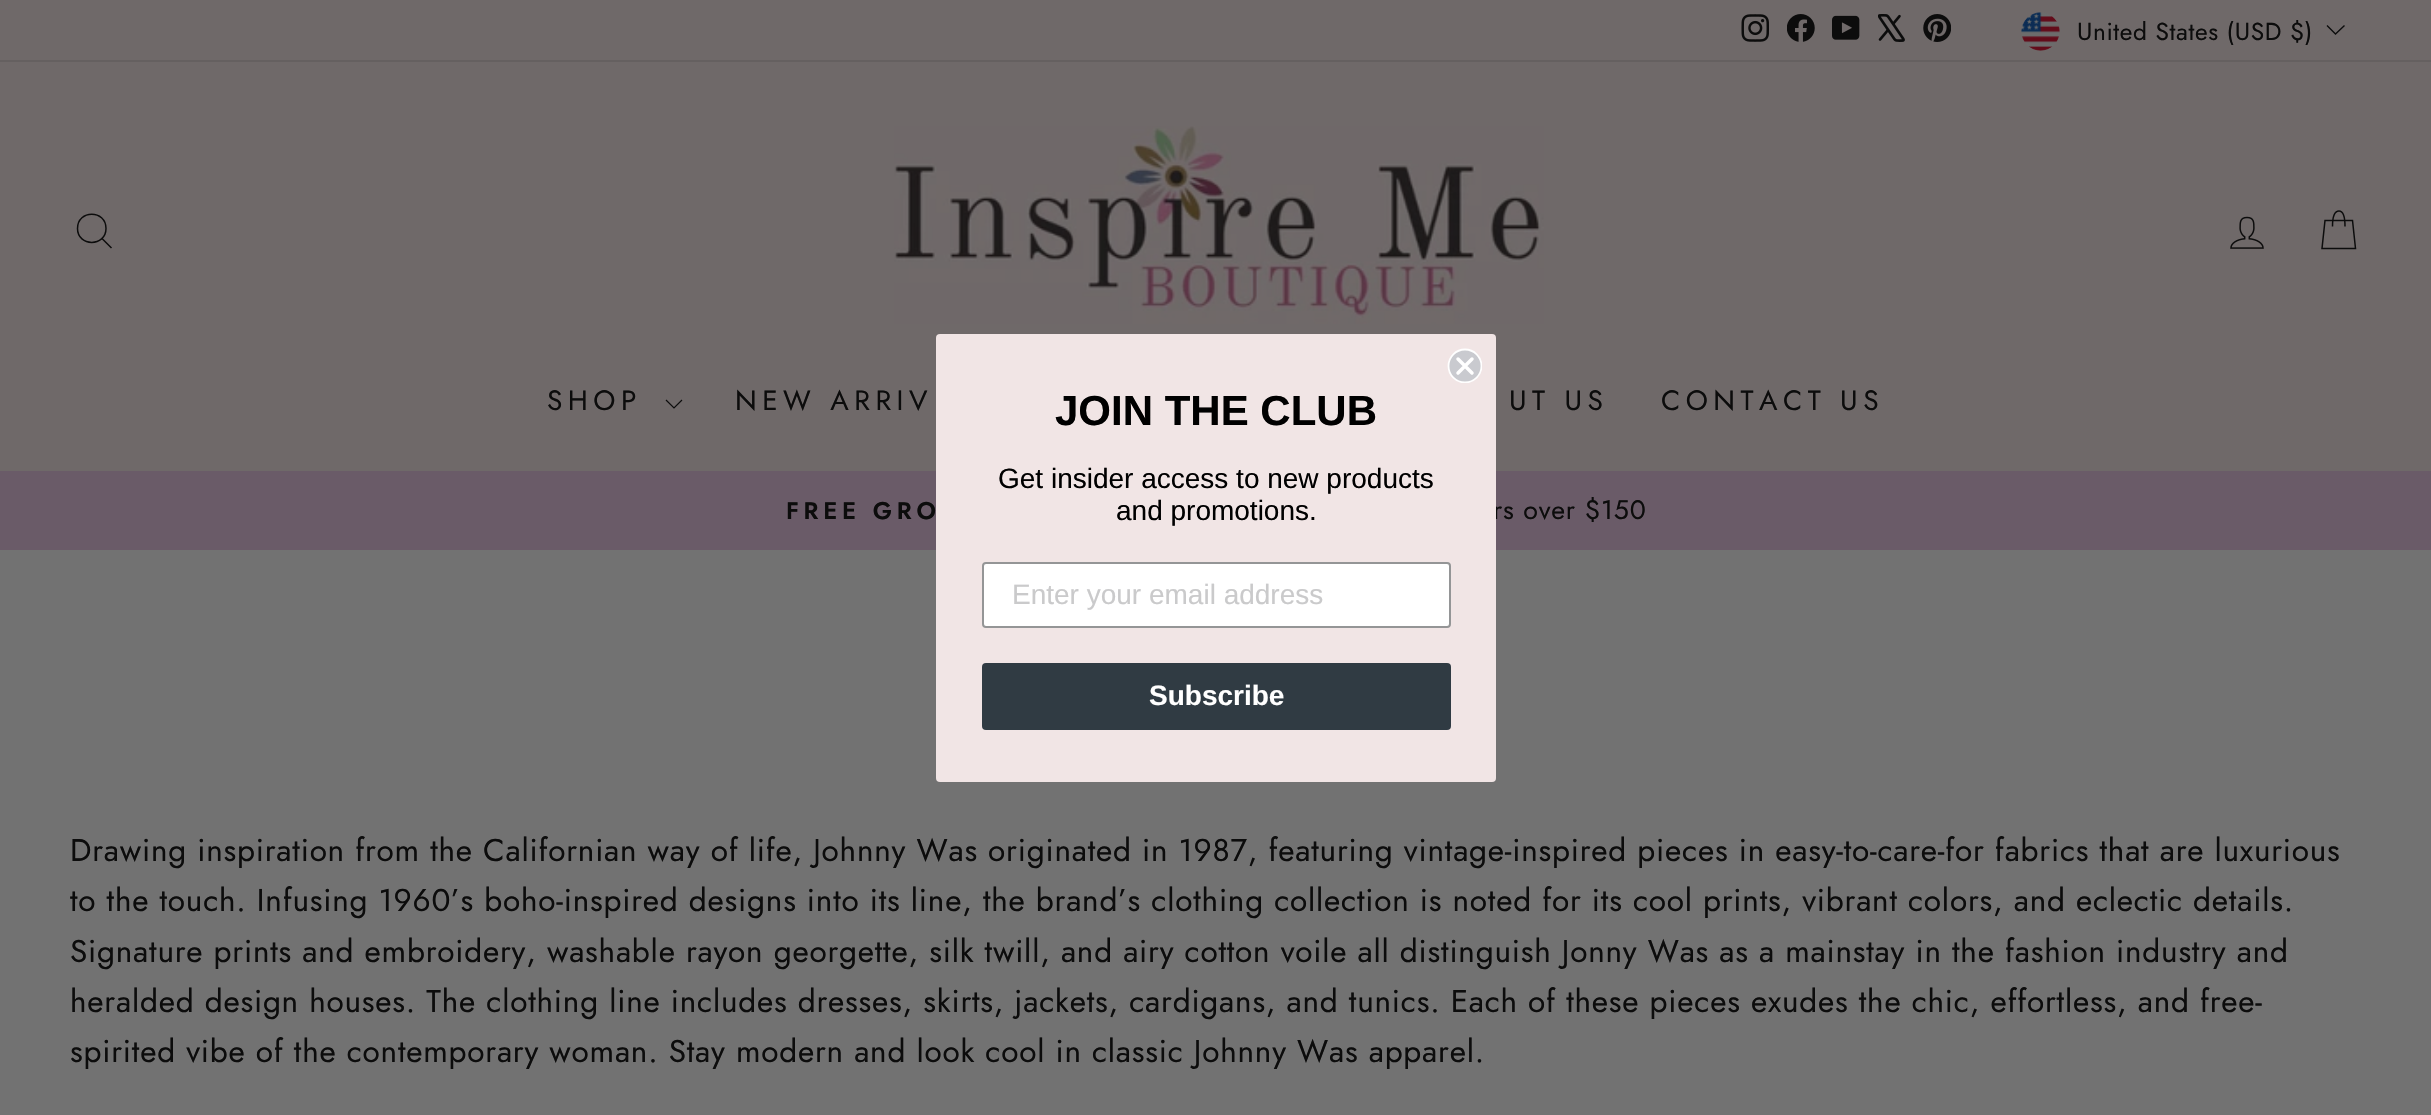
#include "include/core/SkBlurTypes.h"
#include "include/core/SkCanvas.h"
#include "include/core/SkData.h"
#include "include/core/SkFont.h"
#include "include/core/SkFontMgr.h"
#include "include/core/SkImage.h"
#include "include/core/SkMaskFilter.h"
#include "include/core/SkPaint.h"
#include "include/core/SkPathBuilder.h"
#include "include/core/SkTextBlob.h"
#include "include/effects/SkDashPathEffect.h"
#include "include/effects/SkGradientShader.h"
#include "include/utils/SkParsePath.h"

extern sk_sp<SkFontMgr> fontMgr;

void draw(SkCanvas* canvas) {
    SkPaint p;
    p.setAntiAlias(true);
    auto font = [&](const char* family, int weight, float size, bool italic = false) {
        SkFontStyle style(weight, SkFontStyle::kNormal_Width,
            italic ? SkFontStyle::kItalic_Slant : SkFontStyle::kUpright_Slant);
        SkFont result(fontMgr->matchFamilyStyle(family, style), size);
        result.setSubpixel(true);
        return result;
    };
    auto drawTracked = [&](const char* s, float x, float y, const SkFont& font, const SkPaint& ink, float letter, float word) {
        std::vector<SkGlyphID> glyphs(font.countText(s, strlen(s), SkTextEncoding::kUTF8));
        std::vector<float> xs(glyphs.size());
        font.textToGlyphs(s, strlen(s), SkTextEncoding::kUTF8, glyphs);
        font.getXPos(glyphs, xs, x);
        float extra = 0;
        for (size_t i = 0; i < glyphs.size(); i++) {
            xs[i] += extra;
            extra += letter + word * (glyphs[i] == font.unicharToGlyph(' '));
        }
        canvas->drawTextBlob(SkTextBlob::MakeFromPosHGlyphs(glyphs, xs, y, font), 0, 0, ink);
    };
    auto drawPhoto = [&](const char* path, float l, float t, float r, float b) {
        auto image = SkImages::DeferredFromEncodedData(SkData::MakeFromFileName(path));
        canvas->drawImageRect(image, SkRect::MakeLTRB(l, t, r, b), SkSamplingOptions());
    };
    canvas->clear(0xFF727272);
    p.setColor(0xFF6F6969);
    canvas->drawRect(SkRect::MakeLTRB(0, 0, 2431, 60), p);
    drawPhoto("media/1.png", 1741, 14, 1769, 42);
    drawPhoto("media/2.png", 1787, 14, 1815, 42);
    drawPhoto("media/3.png", 1832, 15, 1860, 40);
    drawPhoto("media/4.png", 1878, 14, 1905, 42);
    drawPhoto("media/5.png", 1923, 14, 1951, 42);
    drawPhoto("media/6.png", 2021, 12, 2060, 51);
    auto font1 = font("Jost", 400, 24.5f);
    p.setColor(0xFF0C0C0C);
    drawTracked("United States (USD $)", 2077, 40, font1, p, 0.6f, 0);
    p.setStyle(SkPaint::kStroke_Style);
    p.setStrokeWidth(1.4f);
    canvas->drawPath(SkPathBuilder().moveTo(2327, 25.5f).lineTo(2335.5f, 34).lineTo(2344.5f, 25.5f).detach(), p);
    p.setStyle(SkPaint::kFill_Style);
    p.setColor(0xFF6F6969);
    canvas->drawRect(SkRect::MakeLTRB(0, 62, 2431, 471), p);
    p.setColor(0xFF656060);
    canvas->drawRect(SkRect::MakeLTRB(0, 60, 2431, 62), p);
    p.setStyle(SkPaint::kStroke_Style);
    p.setStrokeWidth(1.5f);
    p.setColor(0xFF0C0C0C);
    canvas->drawPath(SkPathBuilder().moveTo(106, 228.5f).cubicTo(106, 247, 77.5f, 247, 77.5f, 228.5f).cubicTo(77.5f, 209.5f, 106, 209.5f, 106, 228.5f).close().moveTo(111.5f, 248).lineTo(102, 238.5f).detach(), p);
    drawPhoto("media/7.png", 894, 126, 1544, 324);
    drawPhoto("media/8.png", 2230, 216, 2264, 249);
    canvas->drawPath(SkPathBuilder().moveTo(2332.5f, 226.5f).cubicTo(2332.5f, 214.5f, 2335.5f, 211, 2339, 211).cubicTo(2342, 211, 2345, 214.5f, 2345, 226.5f).moveTo(2325, 220.5f).lineTo(2352.5f, 220.5f).lineTo(2355.5f, 248.5f).lineTo(2322, 248.5f).close().detach(), p);
    auto font2 = font("Jost", 400, 28);
    p.setStyle(SkPaint::kFill_Style);
    drawTracked("SHOP", 547, 410, font2, p, 5.5f, 0);
    p.setStyle(SkPaint::kStroke_Style);
    p.setStrokeWidth(1.2f);
    canvas->drawPath(SkPathBuilder().moveTo(666, 400).lineTo(674, 408).lineTo(682, 400).detach(), p);
    p.setStyle(SkPaint::kFill_Style);
    {
        const struct { const char* s; float x, y; } items[] = {
            {"NEW ARRIV", 735, 410},
            {"UT US", 1509, 410},
            {"CONTACT US", 1661, 410},
        };
        for (auto [s, x, y] : items) {
            drawTracked(s, x, y, font2, p, 5.5f, 0);
        }
    }
    p.setColor(0xFF6A5B68);
    canvas->drawRect(SkRect::MakeLTRB(0, 471, 2431, 550), p);
    auto font3 = font("Jost", 600, 24);
    p.setColor(0xFF0C0C0C);
    drawTracked("FREE GRO", 786, 519, font3, p, 4.75f, 0);
    auto font4 = font("Jost", 400, 26.75f);
    drawTracked("rs over $150", 1493, 519, font4, p, 0.79f, 0);
    auto font5 = font("Jost", 400, 31.5f);
    {
        const struct { const char* s; float x, y; } items[] = {
            {"Drawing inspiration from the Californian way of life, Johnny Was originated in 1987, featuring vintage-inspired pieces in easy-to-care-for fabrics that are luxurious", 70, 861},
            {"to the touch. Infusing 1960’s boho-inspired designs into its line, the brand’s clothing collection is noted for its cool prints, vibrant colors, and eclectic details.", 70, 911},
            {"Signature prints and embroidery, washable rayon georgette, silk twill, and airy cotton voile all distinguish Jonny Was as a mainstay in the fashion industry and", 70, 962},
            {"heralded design houses. The clothing line includes dresses, skirts, jackets, cardigans, and tunics. Each of these pieces exudes the chic, effortless, and free-", 70, 1012},
            {"spirited vibe of the contemporary woman. Stay modern and look cool in classic Johnny Was apparel.", 70, 1062},
        };
        for (auto [s, x, y] : items) {
            drawTracked(s, x, y, font5, p, 0.79f, 0);
        }
    }
    p.setColor(0xFFF1E5E5);
    canvas->drawRoundRect(SkRect::MakeLTRB(936, 334, 1496, 782), 4, 4, p);
    p.setColor(0xFFC9CACF);
    canvas->drawCircle(1465, 366, 16.5f, p);
    canvas->save();
    canvas->clipRect(SkRect::MakeLTRB(1447, 348, 1482, 383));
    p.setStyle(SkPaint::kStroke_Style);
    p.setStrokeWidth(1.8f);
    p.setColor(0xFFFFFFFF);
    canvas->drawCircle(1465, 366, 16.5f, p);
    canvas->restore();
    p.setStrokeWidth(3.5f);
    p.setStrokeCap(SkPaint::kRound_Cap);
    p.setStrokeJoin(SkPaint::kRound_Join);
    canvas->drawPath(SkPathBuilder().moveTo(1458, 359).lineTo(1472, 373).moveTo(1458, 373).lineTo(1472, 359).close().detach(), p);
    auto font6 = font("Liberation Sans", 700, 42);
    p.setStyle(SkPaint::kFill_Style);
    p.setColor(0xFF000000);
    canvas->drawString("JOIN THE CLUB", 1055, 425, font6, p);
    auto font7 = font("Liberation Sans", 400, 28);
    canvas->drawString("Get insider access to new products", 998, 488, font7, p);
    canvas->drawString("and promotions.", 1116, 520, font7, p);
    p.setColor(0xFFFFFFFF);
    canvas->drawRoundRect(SkRect::MakeLTRB(983, 563, 1450, 627), 3, 3, p);
    p.setStyle(SkPaint::kStroke_Style);
    p.setStrokeWidth(2);
    p.setStrokeCap(SkPaint::kButt_Cap);
    p.setStrokeJoin(SkPaint::kMiter_Join);
    p.setColor(0xFF949596);
    canvas->drawRoundRect(SkRect::MakeLTRB(983, 563, 1450, 627), 3, 3, p);
    p.setStyle(SkPaint::kFill_Style);
    p.setColor(0xFFCACACB);
    canvas->drawString("Enter your email address", 1012, 604, font7, p);
    p.setColor(0xFF303B43);
    canvas->drawRoundRect(SkRect::MakeLTRB(982, 663, 1451, 730), 4, 4, p);
    auto font8 = font("Liberation Sans", 700, 28);
    p.setColor(0xFFFFFFFF);
    canvas->drawString("Subscribe", 1149, 705, font8, p);
}
